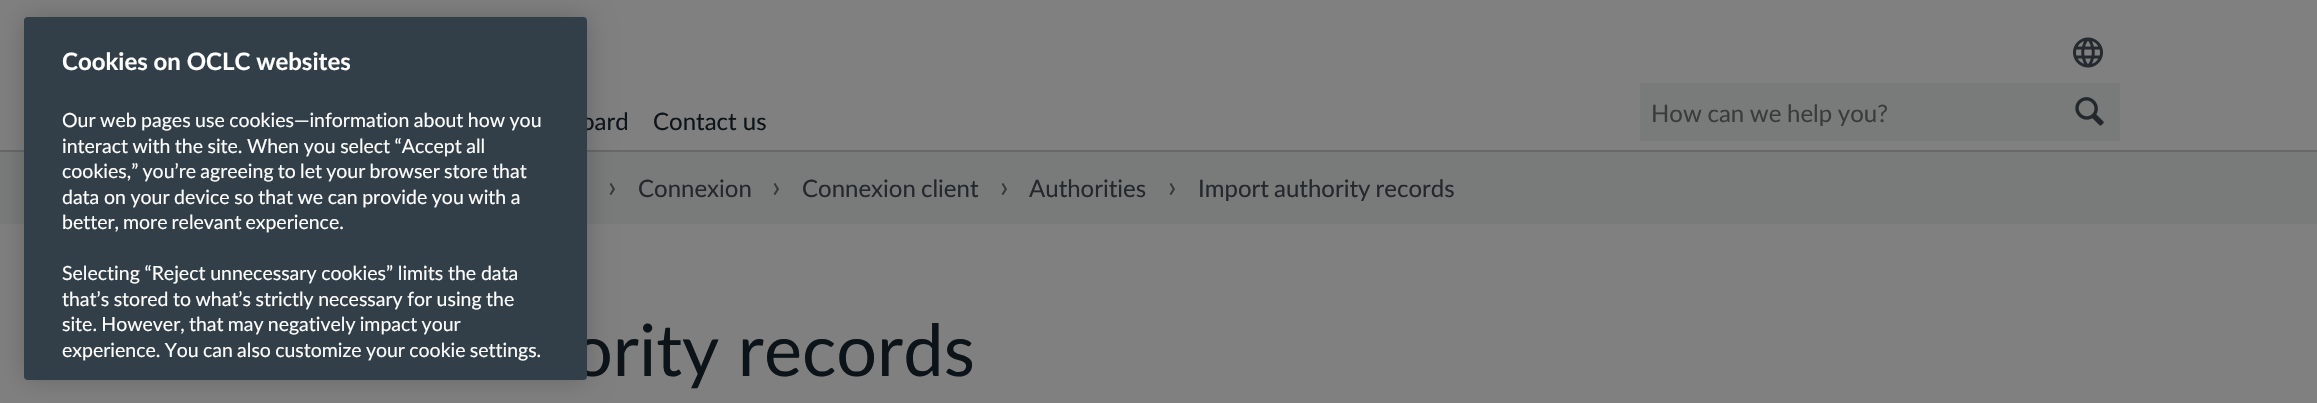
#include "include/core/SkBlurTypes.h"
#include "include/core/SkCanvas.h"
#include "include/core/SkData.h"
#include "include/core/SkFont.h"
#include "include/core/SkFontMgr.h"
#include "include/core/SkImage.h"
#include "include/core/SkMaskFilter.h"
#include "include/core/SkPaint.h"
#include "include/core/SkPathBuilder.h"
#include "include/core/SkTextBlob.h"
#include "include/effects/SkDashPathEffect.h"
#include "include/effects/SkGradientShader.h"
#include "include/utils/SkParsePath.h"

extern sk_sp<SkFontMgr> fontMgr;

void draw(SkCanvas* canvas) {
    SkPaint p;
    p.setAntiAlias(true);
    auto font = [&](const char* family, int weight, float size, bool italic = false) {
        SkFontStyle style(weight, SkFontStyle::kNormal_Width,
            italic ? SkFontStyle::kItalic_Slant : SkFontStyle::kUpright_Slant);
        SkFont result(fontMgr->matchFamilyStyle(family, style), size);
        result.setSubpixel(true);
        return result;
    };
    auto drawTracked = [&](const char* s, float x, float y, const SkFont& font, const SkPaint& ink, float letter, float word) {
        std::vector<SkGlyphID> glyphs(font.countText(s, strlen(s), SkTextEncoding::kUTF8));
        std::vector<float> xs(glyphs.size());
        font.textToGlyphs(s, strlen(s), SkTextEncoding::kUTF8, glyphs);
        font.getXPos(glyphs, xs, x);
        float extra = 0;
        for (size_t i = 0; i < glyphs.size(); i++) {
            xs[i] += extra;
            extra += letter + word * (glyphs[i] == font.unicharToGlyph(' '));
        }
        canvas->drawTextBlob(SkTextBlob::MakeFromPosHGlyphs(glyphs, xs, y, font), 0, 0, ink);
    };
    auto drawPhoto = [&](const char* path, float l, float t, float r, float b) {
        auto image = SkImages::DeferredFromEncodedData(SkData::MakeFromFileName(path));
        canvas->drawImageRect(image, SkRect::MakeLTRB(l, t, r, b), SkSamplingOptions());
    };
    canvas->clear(0xFF808080);
    p.setColor(0xFF666869);
    canvas->drawRect(SkRect::MakeLTRB(0, 150, 2317, 152), p);
    p.setColor(0xFF797A7A);
    canvas->drawRect(SkRect::MakeLTRB(0, 152, 2317, 224), p);
    p.setColor(0x33000000);
    p.setMaskFilter(SkMaskFilter::MakeBlur(kNormal_SkBlurStyle, 13.5f));
    canvas->drawRoundRect(SkRect::MakeLTRB(24, 17, 587, 380), 4, 4, p);
    p.setMaskFilter(nullptr);
    auto font1 = font("Lato", 400, 24);
    p.setColor(0xFF0D1419);
    drawTracked("oard", 581, 130, font1, p, 0, -1);
    auto font2 = font("Lato", 400, 72);
    canvas->drawString("ority records", 572, 376, font2, p);
    p.setColor(0xFF333F48);
    canvas->drawRoundRect(SkRect::MakeLTRB(24, 17, 587, 380), 4, 4, p);
    auto font3 = font("Lato", 700, 24);
    p.setColor(0xFFFFFFFF);
    canvas->drawString("Cookies on OCLC websites", 62, 70, font3, p);
    auto font4 = font("Lato", 400, 19.5f);
    drawTracked("Our web pages use cookies—information about how you", 62, 127, font4, p, 0, -0.5f);
    drawTracked("interact with the site. When you select “Accept all", 62, 153, font4, p, 0, -0.5f);
    drawTracked("cookies,” you’re agreeing to let your browser store that", 62, 178, font4, p, 0, -0.75f);
    drawTracked("data on your device so that we can provide you with a", 62, 204, font4, p, 0, -0.4f);
    drawTracked("better, more relevant experience.", 62, 229, font4, p, 0, -1);
    drawTracked("Selecting “Reject unnecessary cookies” limits the data", 62, 280, font4, p, 0, -0.25f);
    drawTracked("that’s stored to what’s strictly necessary for using the", 62, 306, font4, p, 0, -0.5f);
    drawTracked("site. However, that may negatively impact your", 62, 331, font4, p, 0, -0.75f);
    drawTracked("experience. You can also customize your cookie settings.", 62, 357, font4, p, 0, -0.75f);
    drawPhoto("media/1.png", 2073, 37, 2103, 68);
    p.setColor(0xFF0D1419);
    canvas->drawString("Contact us", 653, 130, font1, p);
    p.setColor(0xFF797A7A);
    canvas->drawRect(SkRect::MakeLTRB(1640, 83, 2120, 141), p);
    p.setColor(0xFF3B3B3B);
    drawTracked("How can we help you?", 1651, 122, font1, p, 0, -0.5f);
    drawPhoto("media/2.png", 2075, 97, 2104, 126);
    auto font5 = font("Lato", 400, 30);
    p.setColor(0xFF34393C);
    canvas->drawString("›", 608, 197, font5, p);
    p.setColor(0xFF22282C);
    canvas->drawString("Connexion", 638, 197, font1, p);
    p.setColor(0xFF34393C);
    canvas->drawString("›", 772, 197, font5, p);
    p.setColor(0xFF22282C);
    drawTracked("Connexion client", 802, 197, font1, p, 0, -1);
    p.setColor(0xFF34393C);
    canvas->drawString("›", 1000, 197, font5, p);
    p.setColor(0xFF22282C);
    canvas->drawString("Authorities", 1029, 197, font1, p);
    p.setColor(0xFF34393C);
    canvas->drawString("›", 1168, 197, font5, p);
    p.setColor(0xFF22282C);
    drawTracked("Import authority records", 1198, 197, font1, p, 0, -1);
}
